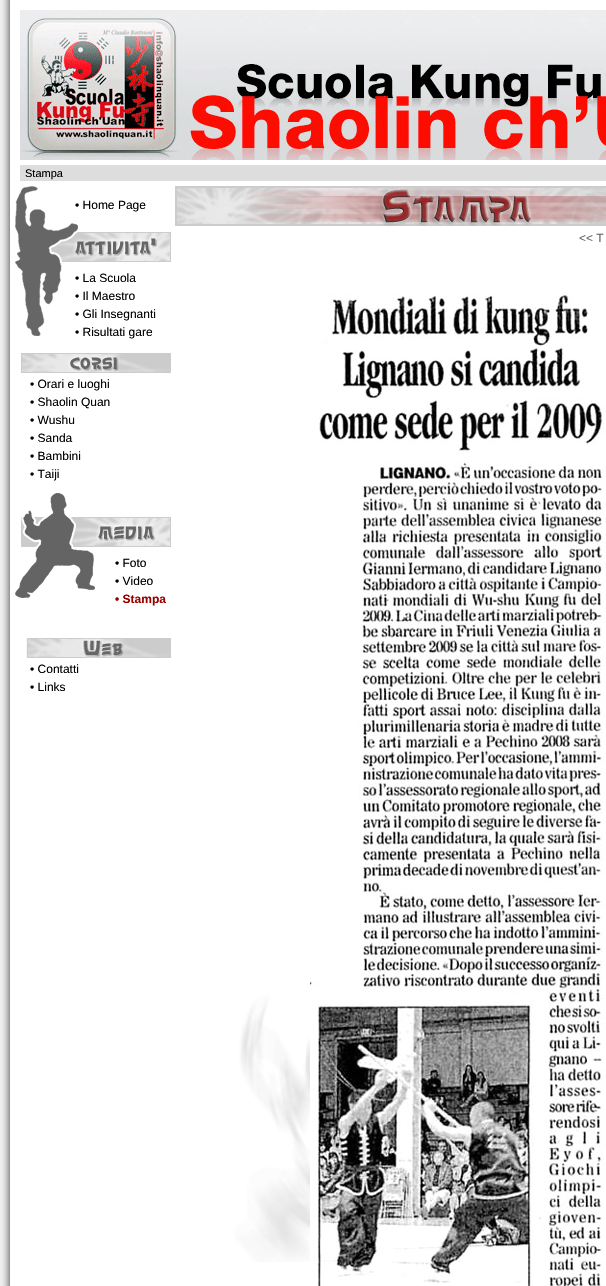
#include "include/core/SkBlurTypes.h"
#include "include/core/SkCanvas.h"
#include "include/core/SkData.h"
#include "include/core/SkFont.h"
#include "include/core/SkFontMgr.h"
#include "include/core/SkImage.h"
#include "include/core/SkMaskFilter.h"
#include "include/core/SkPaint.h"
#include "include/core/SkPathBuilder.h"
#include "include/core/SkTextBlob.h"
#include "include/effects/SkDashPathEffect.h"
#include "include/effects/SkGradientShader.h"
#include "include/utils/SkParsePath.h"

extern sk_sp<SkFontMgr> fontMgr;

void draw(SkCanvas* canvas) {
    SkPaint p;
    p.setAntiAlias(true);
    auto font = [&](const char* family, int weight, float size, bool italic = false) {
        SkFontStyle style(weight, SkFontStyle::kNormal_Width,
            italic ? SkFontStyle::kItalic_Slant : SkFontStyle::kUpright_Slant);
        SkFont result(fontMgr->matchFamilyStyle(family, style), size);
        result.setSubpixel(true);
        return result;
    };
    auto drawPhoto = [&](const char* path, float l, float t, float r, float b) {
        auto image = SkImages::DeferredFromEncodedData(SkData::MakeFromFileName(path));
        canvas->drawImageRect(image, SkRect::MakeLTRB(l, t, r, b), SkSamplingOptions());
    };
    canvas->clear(0xFFFFFFFF);
    drawPhoto("media/1.png", 0, 0, 10, 1286);
    drawPhoto("media/2.png", 20, 10, 606, 160);
    p.setColor(0xFFDDDDDD);
    canvas->drawRect(SkRect::MakeLTRB(20, 165, 606, 181), p);
    auto font1 = font("Liberation Sans", 400, 11);
    p.setColor(0xFF000000);
    canvas->drawString("Stampa", 25, 177, font1, p);
    drawPhoto("media/3.png", 15, 186, 171, 269);
    auto font2 = font("Liberation Sans", 400, 12);
    canvas->drawString("• Home Page", 75, 209, font2, p);
    drawPhoto("media/4.png", 20, 269, 62, 336);
    {
        const struct { const char* s; float x, y; } items[] = {
            {"• La Scuola", 75, 282},
            {"• Il Maestro", 75, 300},
            {"• Gli Insegnanti", 75, 318},
            {"• Risultati gare", 75, 336},
        };
        for (auto [s, x, y] : items) {
            canvas->drawString(s, x, y, font2, p);
        }
    }
    drawPhoto("media/5.png", 21, 353, 171, 373);
    {
        const struct { const char* s; float x, y; } items[] = {
            {"• Orari e luoghi", 30, 388},
            {"• Shaolin Quan", 30, 406},
            {"• Wushu", 30, 424},
            {"• Sanda", 30, 442},
            {"• Bambini", 30, 460},
            {"• Taiji", 30, 478},
        };
        for (auto [s, x, y] : items) {
            canvas->drawString(s, x, y, font2, p);
        }
    }
    drawPhoto("media/6.png", 21, 493, 171, 549);
    drawPhoto("media/7.png", 15, 549, 95, 598);
    canvas->drawString("• Foto", 115, 567, font2, p);
    canvas->drawString("• Video", 115, 585, font2, p);
    auto font3 = font("Liberation Sans", 700, 12);
    p.setColor(0xFF990000);
    canvas->drawString("• Stampa", 115, 603, font3, p);
    drawPhoto("media/8.png", 26, 638, 171, 658);
    p.setColor(0xFF000000);
    canvas->drawString("• Contatti", 30, 673, font2, p);
    canvas->drawString("• Links", 30, 691, font2, p);
    drawPhoto("media/9.png", 175, 186, 606, 226);
    p.setColor(0xFF666666);
    canvas->drawString("<< T", 579, 242, font2, p);
    drawPhoto("media/10.png", 235, 868, 310, 1262);
    drawPhoto("media/11.png", 310, 293, 606, 1286);
}
